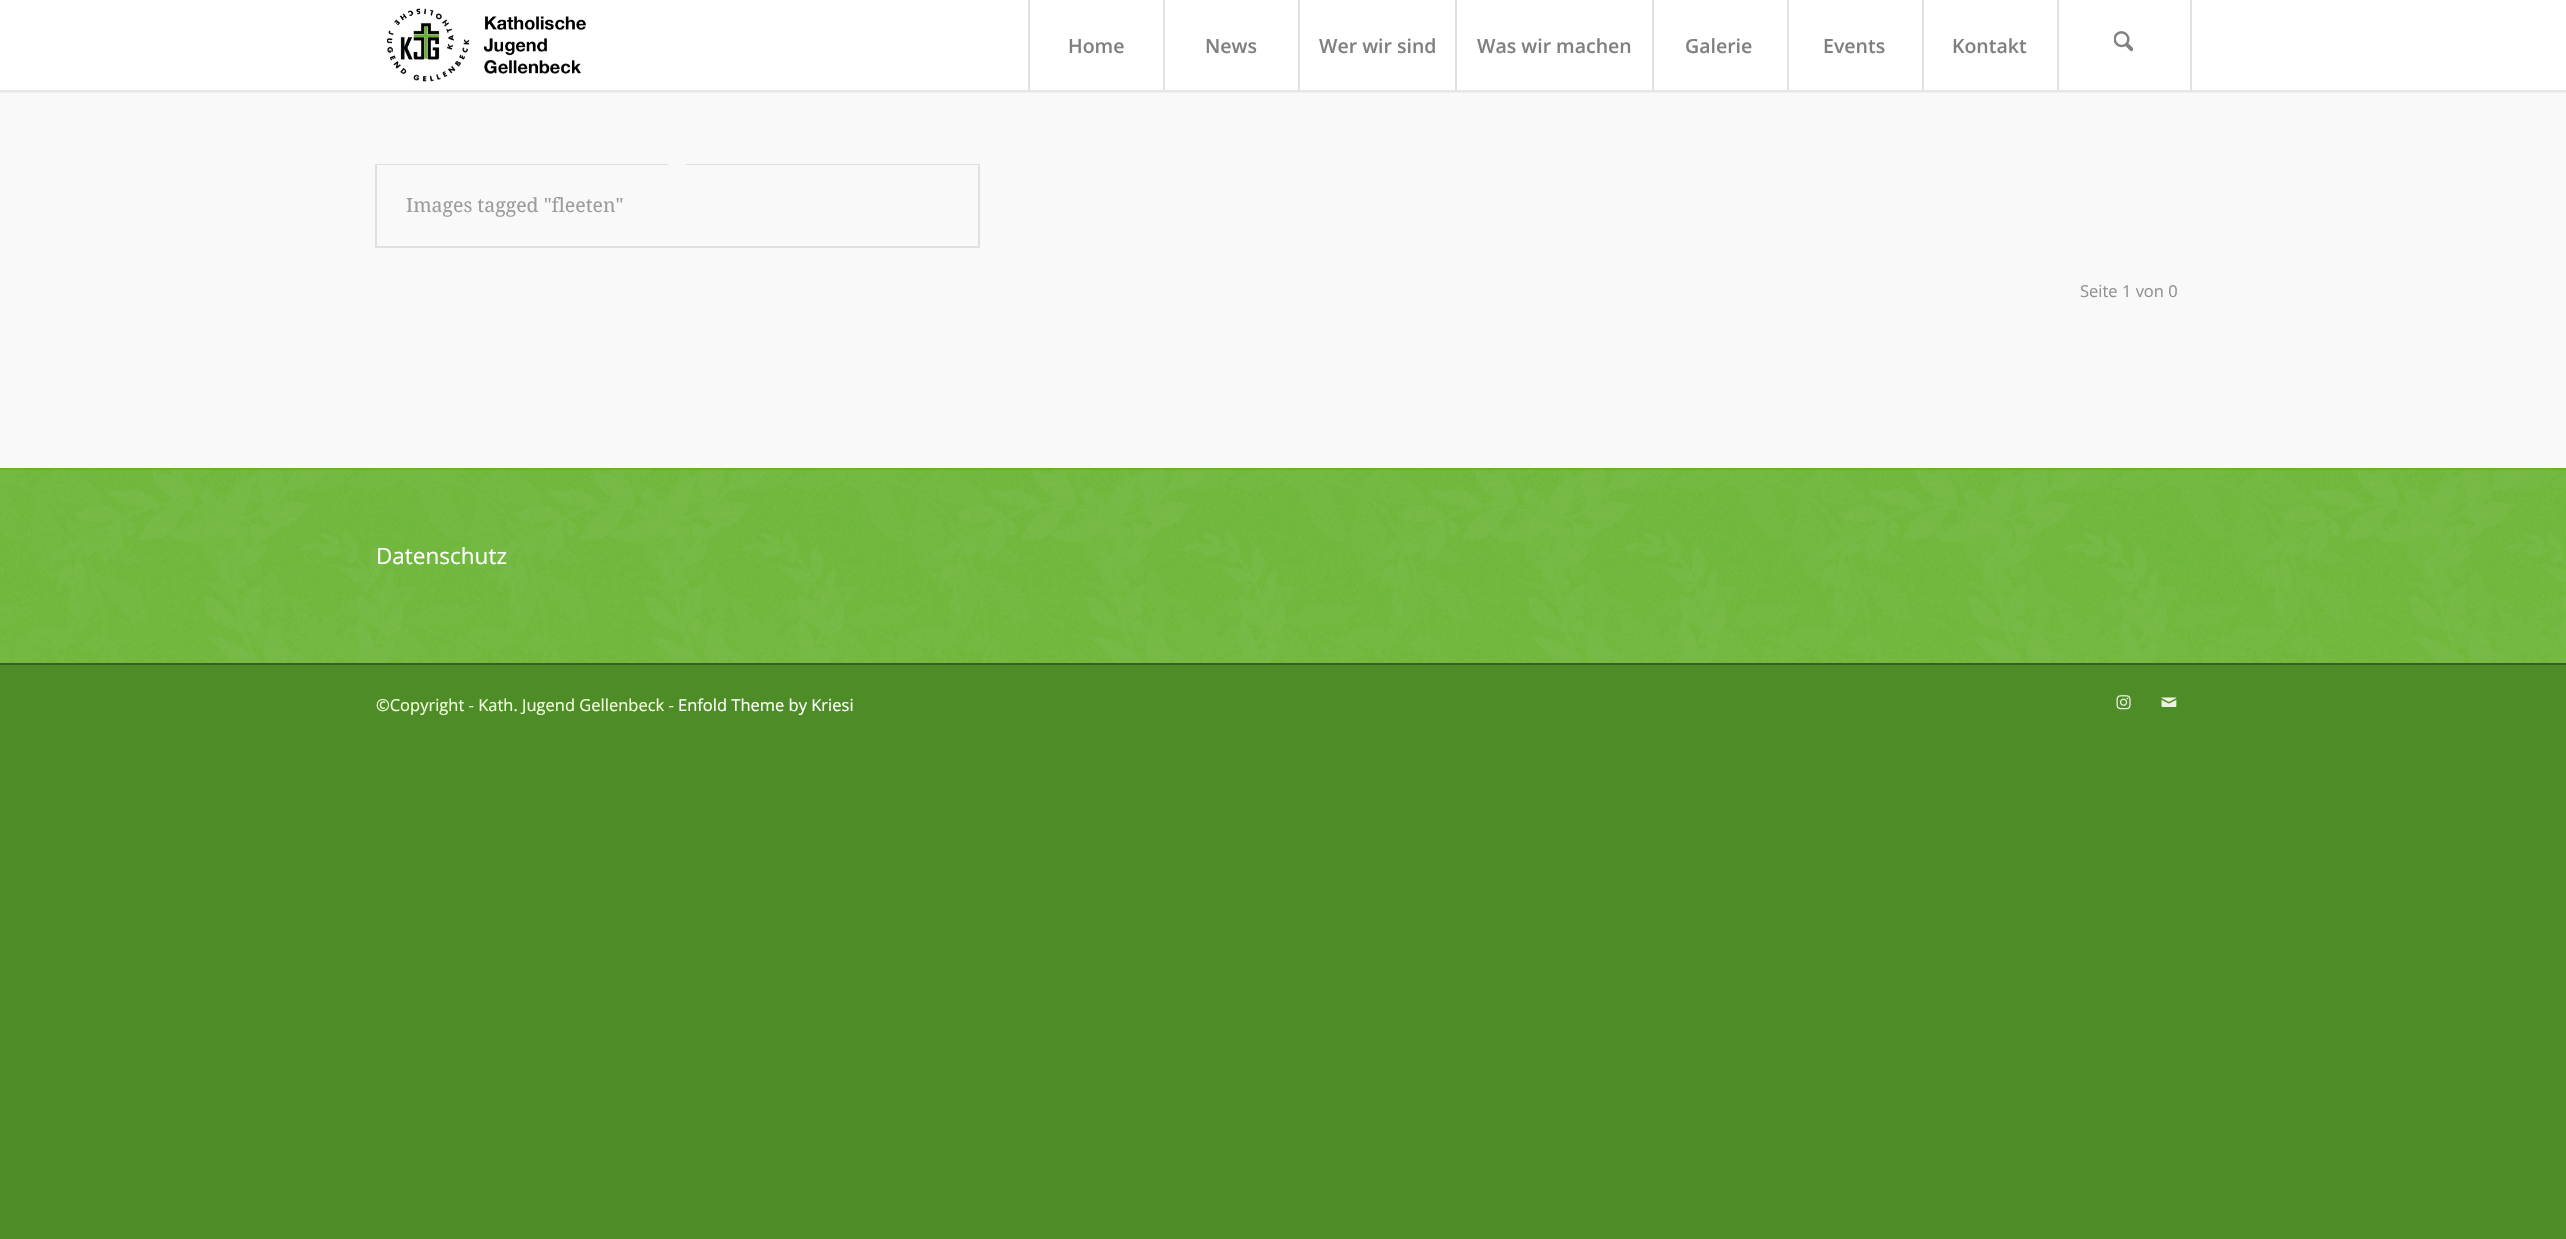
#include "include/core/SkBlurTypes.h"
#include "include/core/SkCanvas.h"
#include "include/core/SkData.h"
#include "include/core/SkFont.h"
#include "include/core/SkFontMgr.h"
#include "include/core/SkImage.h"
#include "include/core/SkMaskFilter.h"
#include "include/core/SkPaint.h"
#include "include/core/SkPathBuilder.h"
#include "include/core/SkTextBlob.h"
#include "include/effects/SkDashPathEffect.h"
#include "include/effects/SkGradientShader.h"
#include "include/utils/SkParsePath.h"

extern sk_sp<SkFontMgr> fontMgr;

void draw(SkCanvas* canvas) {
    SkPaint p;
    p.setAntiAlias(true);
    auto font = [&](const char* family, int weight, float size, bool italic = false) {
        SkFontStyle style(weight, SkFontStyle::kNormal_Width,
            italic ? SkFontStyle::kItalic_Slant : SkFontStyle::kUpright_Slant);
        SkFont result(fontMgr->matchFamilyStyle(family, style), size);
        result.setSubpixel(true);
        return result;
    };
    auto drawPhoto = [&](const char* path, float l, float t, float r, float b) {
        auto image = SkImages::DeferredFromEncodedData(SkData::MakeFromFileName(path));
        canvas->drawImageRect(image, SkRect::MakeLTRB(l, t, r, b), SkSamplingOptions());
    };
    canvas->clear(0xFF4E8C28);
    p.setColor(0xFFFFFFFF);
    canvas->drawRect(SkRect::MakeLTRB(0, 0, 2566, 90), p);
    p.setColor(0xFFF9F9F9);
    canvas->drawRect(SkRect::MakeLTRB(0, 90, 2566, 468), p);
    canvas->save();
    canvas->clipRect(SkRect::MakeLTRB(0, 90, 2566, 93));
    p.setColor(0x1A000000);
    p.setMaskFilter(SkMaskFilter::MakeBlur(kNormal_SkBlurStyle, 1.5f));
    canvas->drawRect(SkRect::MakeLTRB(-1, -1, 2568, 92), p);
    p.setMaskFilter(nullptr);
    canvas->restore();
    drawPhoto("media/1.png", 387, 8, 586, 82);
    p.setColor(0xFFE1E1E1);
    canvas->drawRect(SkRect::MakeLTRB(1028, 0, 1030, 90), p);
    auto font1 = font("Open Sans", 600, 19.5f);
    p.setColor(0xFF808080);
    canvas->drawString("Home", 1068, 53, font1, p);
    p.setColor(0xFFE1E1E1);
    canvas->drawRect(SkRect::MakeLTRB(1163, 0, 1165, 90), p);
    p.setColor(0xFF808080);
    canvas->drawString("News", 1205, 53, font1, p);
    p.setColor(0xFFE1E1E1);
    canvas->drawRect(SkRect::MakeLTRB(1298, 0, 1300, 90), p);
    p.setColor(0xFF808080);
    canvas->drawString("Wer wir sind", 1319, 53, font1, p);
    p.setColor(0xFFE1E1E1);
    canvas->drawRect(SkRect::MakeLTRB(1455, 0, 1457, 90), p);
    p.setColor(0xFF808080);
    canvas->drawString("Was wir machen", 1477, 53, font1, p);
    p.setColor(0xFFE1E1E1);
    canvas->drawRect(SkRect::MakeLTRB(1652, 0, 1654, 90), p);
    p.setColor(0xFF808080);
    canvas->drawString("Galerie", 1685, 53, font1, p);
    p.setColor(0xFFE1E1E1);
    canvas->drawRect(SkRect::MakeLTRB(1787, 0, 1789, 90), p);
    p.setColor(0xFF808080);
    canvas->drawString("Events", 1823, 53, font1, p);
    p.setColor(0xFFE1E1E1);
    canvas->drawRect(SkRect::MakeLTRB(1922, 0, 1924, 90), p);
    p.setColor(0xFF808080);
    canvas->drawString("Kontakt", 1952, 53, font1, p);
    p.setColor(0xFFE1E1E1);
    canvas->drawRect(SkRect::MakeLTRB(2190, 0, 2192, 90), p);
    canvas->drawRect(SkRect::MakeLTRB(2057, 0, 2059, 90), p);
    drawPhoto("media/2.png", 2114, 31, 2133, 52);
    p.setStyle(SkPaint::kStroke_Style);
    p.setStrokeWidth(2);
    p.setColor(0xFFE0E0E0);
    canvas->drawRect(SkRect::MakeLTRB(376, 165, 979, 247), p);
    p.setStyle(SkPaint::kFill_Style);
    p.setColor(0xFFF9F9F9);
    canvas->drawRect(SkRect::MakeLTRB(377, 165, 978, 166), p);
    canvas->drawPath(SkPathBuilder().moveTo(677, 156).lineTo(688, 166.5f).lineTo(677, 177).lineTo(666.5f, 166.5f).close().detach(), p);
    auto font2 = font("Droid Serif", 400, 19.5f);
    p.setColor(0xFF9C9C9C);
    canvas->drawString("Images tagged \"fleeten\"", 406, 212, font2, p);
    auto font3 = font("Open Sans", 400, 16.5f);
    p.setColor(0xFF919191);
    canvas->drawString("Seite 1 von 0", 2080, 297, font3, p);
    p.setColor(0xFF66B32E);
    canvas->drawRect(SkRect::MakeLTRB(0, 468, 2566, 663), p);
    drawPhoto("media/3.png", 0, 470, 2566, 663);
    auto font4 = font("Open Sans", 400, 22.5f);
    p.setColor(0xFFFFFFFF);
    canvas->drawString("Datenschutz", 376, 564, font4, p);
    p.setColor(0xFF37611C);
    canvas->drawRect(SkRect::MakeLTRB(0, 663, 2566, 665), p);
    p.setColor(0xFFF3FFDE);
    canvas->drawString("©Copyright - Kath. Jugend Gellenbeck -", 376, 711, font3, p);
    p.setColor(0xFFFFFFFF);
    canvas->drawString("Enfold Theme by Kriesi", 678, 711, font3, p);
    drawPhoto("media/4.png", 2116, 695, 2131, 710);
    drawPhoto("media/5.png", 2161, 697, 2177, 707);
}
